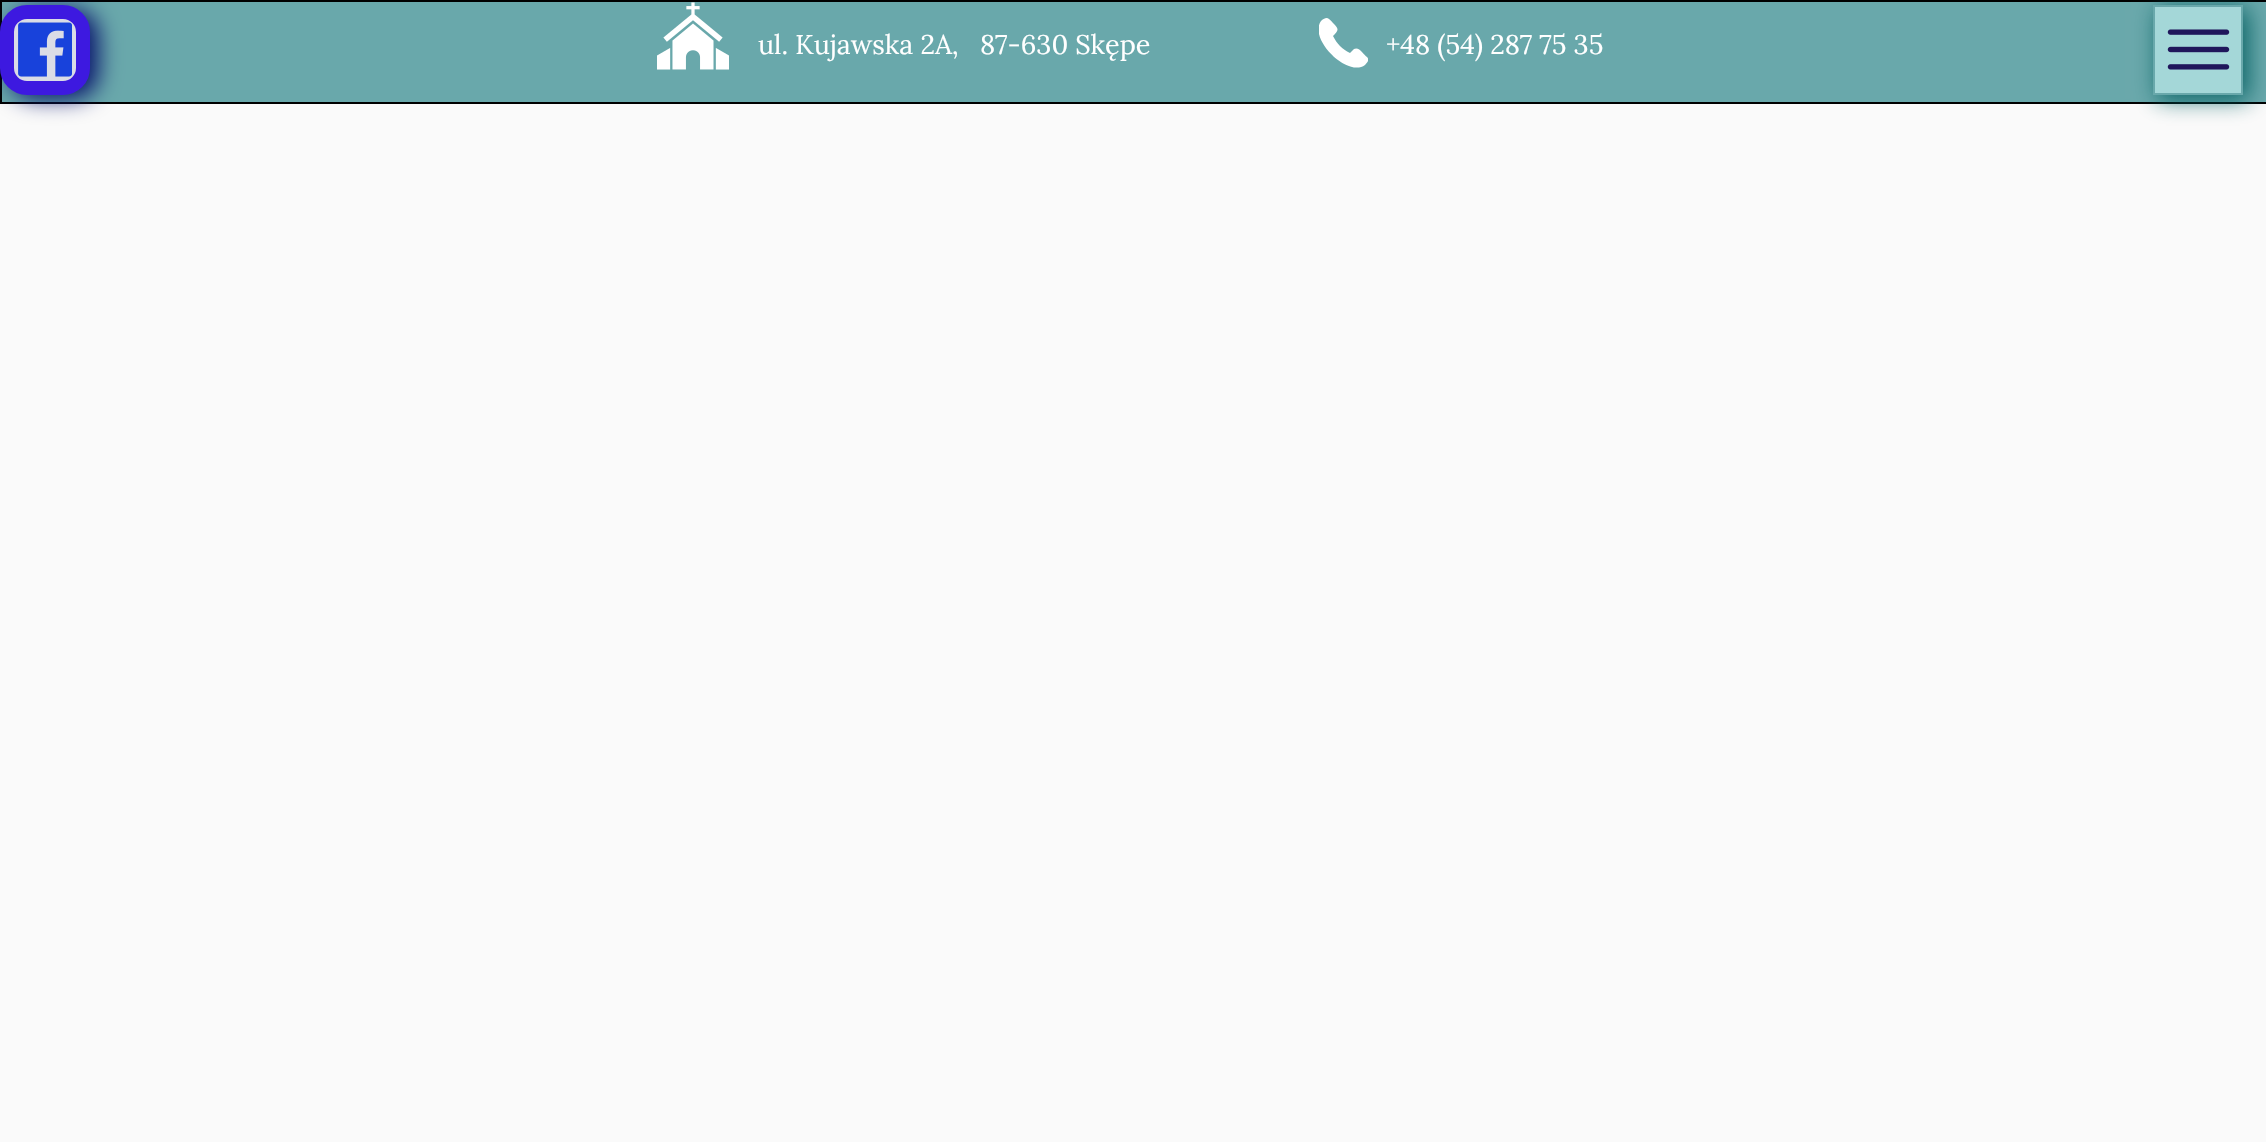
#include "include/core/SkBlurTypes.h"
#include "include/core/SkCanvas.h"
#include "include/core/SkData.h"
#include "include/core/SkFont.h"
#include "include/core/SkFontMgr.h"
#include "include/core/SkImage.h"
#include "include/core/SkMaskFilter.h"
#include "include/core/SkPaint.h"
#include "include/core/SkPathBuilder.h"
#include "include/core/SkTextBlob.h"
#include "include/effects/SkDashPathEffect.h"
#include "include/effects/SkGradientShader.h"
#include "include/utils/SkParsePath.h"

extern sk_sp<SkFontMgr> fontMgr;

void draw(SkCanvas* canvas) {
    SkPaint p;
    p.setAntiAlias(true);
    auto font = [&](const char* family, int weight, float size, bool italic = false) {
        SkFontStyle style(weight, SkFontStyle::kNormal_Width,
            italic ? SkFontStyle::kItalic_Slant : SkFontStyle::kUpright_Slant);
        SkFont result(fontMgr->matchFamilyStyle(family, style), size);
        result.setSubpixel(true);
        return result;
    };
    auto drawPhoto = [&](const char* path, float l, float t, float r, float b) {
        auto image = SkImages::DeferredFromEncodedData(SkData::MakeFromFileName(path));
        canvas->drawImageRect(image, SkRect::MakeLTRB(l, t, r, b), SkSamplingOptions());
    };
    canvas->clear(0xFFFAFAFA);
    p.setColor(0xFF69A8AB);
    canvas->drawRect(SkRect::MakeLTRB(1, 1, 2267, 103), p);
    p.setStyle(SkPaint::kStroke_Style);
    p.setStrokeWidth(2);
    p.setColor(0xFF000000);
    canvas->drawRect(SkRect::MakeLTRB(1, 1, 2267, 103), p);
    p.setStyle(SkPaint::kFill_Style);
    p.setColor(0xFF0A166E);
    p.setMaskFilter(SkMaskFilter::MakeBlur(kNormal_SkBlurStyle, 11));
    canvas->drawRoundRect(SkRect::MakeLTRB(9, 9, 99, 99), 27, 27, p);
    p.setMaskFilter(nullptr);
    p.setColor(0xFFDADCE6);
    canvas->drawRoundRect(SkRect::MakeLTRB(7, 12, 83, 88), 20, 20, p);
    p.setStyle(SkPaint::kStroke_Style);
    p.setStrokeWidth(14);
    p.setColor(0xFF3D19E0);
    canvas->drawRoundRect(SkRect::MakeLTRB(7, 12, 83, 88), 20, 20, p);
    drawPhoto("media/1.png", 18, 22, 72, 77);
    drawPhoto("media/2.png", 657, 2, 729, 70);
    auto font1 = font("Lora", 400, 27);
    p.setStyle(SkPaint::kFill_Style);
    p.setColor(0xFFFFFFFF);
    canvas->drawString("ul. Kujawska 2A,   87-630 Skępe", 758, 54, font1, p);
    canvas->save();
    canvas->clipRect(SkRect::MakeLTRB(1319, 18, 1368, 68));
    canvas->drawPath(SkPathBuilder().moveTo(1367, 57).cubicTo(1364, 55, 1359, 46, 1354, 49).lineTo(1350, 53).cubicTo(1342, 49, 1337, 44, 1333, 36).cubicTo(1339, 30, 1339, 29, 1333, 23).cubicTo(1328, 18, 1327, 16, 1321, 21).cubicTo(1308, 39, 1348, 78, 1365, 65).cubicTo(1367, 63, 1370, 60, 1367, 57).close().detach(), p);
    canvas->restore();
    canvas->drawString("+48 (54) 287 75 35", 1386, 54, font1, p);
    p.setColor(0xF2025F61);
    p.setMaskFilter(SkMaskFilter::MakeBlur(kNormal_SkBlurStyle, 11));
    canvas->drawRect(SkRect::MakeLTRB(2158, 9, 2248, 99), p);
    p.setMaskFilter(nullptr);
    p.setColor(0xFFA4D7D8);
    canvas->drawRect(SkRect::MakeLTRB(2154, 6, 2242, 94), p);
    p.setStyle(SkPaint::kStroke_Style);
    p.setStrokeWidth(2);
    p.setColor(0xFF69A8AB);
    canvas->drawRect(SkRect::MakeLTRB(2154, 6, 2242, 94), p);
    drawPhoto("media/3.png", 2167, 29, 2230, 70);
}
